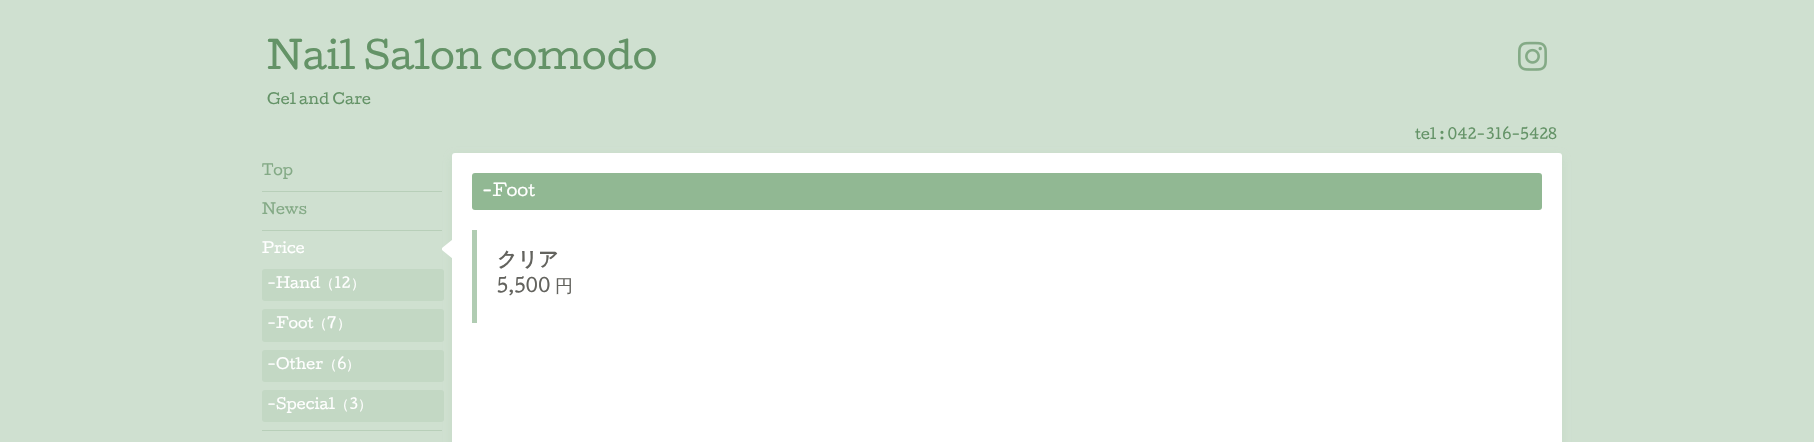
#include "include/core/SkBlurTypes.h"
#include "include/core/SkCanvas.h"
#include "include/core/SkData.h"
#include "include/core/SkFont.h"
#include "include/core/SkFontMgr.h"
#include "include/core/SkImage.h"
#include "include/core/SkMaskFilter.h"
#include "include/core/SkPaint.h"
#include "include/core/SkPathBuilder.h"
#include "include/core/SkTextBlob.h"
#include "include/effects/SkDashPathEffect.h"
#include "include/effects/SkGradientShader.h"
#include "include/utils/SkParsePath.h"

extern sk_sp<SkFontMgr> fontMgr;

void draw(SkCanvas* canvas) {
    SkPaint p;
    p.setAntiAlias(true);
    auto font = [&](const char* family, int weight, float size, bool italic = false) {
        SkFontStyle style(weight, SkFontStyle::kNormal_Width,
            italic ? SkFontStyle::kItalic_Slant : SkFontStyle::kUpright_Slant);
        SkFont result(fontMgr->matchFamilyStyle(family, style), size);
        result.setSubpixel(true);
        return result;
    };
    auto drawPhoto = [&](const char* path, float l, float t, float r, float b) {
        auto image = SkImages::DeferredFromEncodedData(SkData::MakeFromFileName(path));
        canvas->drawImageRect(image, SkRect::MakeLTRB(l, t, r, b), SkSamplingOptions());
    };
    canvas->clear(0xFFCFE0D0);
    auto font1 = font("Cutive", 400, 36);
    p.setColor(0xFF649367);
    canvas->drawString("Nail Salon comodo", 267, 69, font1, p);
    drawPhoto("media/1.png", 1518, 41, 1547, 71);
    auto font2 = font("Cutive", 400, 14);
    canvas->drawString("Gel and Care", 267, 104, font2, p);
    canvas->drawString("tel : 042-316-5428", 1415, 139, font2, p);
    p.setColor(0xFF84AA86);
    canvas->drawString("Top", 262, 175, font2, p);
    p.setColor(0x66B6D0B8);
    p.setMaskFilter(SkMaskFilter::MakeBlur(kNormal_SkBlurStyle, 5));
    canvas->drawRoundRect(SkRect::MakeLTRB(452, 156, 1562, 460), 3, 3, p);
    p.setMaskFilter(nullptr);
    p.setColor(0xFFB8CFB9);
    canvas->drawRect(SkRect::MakeLTRB(262, 191, 442, 192), p);
    p.setColor(0xFF84AA86);
    canvas->drawString("News", 262, 214, font2, p);
    drawPhoto("media/2.png", 442, 240, 452, 258);
    p.setColor(0xFFB8CFB9);
    canvas->drawRect(SkRect::MakeLTRB(262, 230, 442, 231), p);
    p.setColor(0xFFFFFFFF);
    canvas->drawString("Price", 262, 253, font2, p);
    p.setColor(0xFFC3D8C4);
    canvas->drawRoundRect(SkRect::MakeLTRB(262, 269, 444, 301), 3, 3, p);
    p.setColor(0xFFFFFFFF);
    canvas->drawString("-Hand", 267, 288, font2, p);
    auto font3 = font("WenQuanYi Zen Hei", 500, 14);
    canvas->drawString("（", 320, 288, font3, p);
    canvas->drawString("12", 334, 288, font2, p);
    canvas->drawString("）", 351, 288, font3, p);
    p.setColor(0xFFC3D8C4);
    canvas->drawRoundRect(SkRect::MakeLTRB(262, 309, 444, 342), 3, 3, p);
    p.setColor(0xFFFFFFFF);
    canvas->drawString("-Foot", 267, 328, font2, p);
    canvas->drawString("（", 313, 328, font3, p);
    canvas->drawString("7", 327, 328, font2, p);
    canvas->drawString("）", 337, 328, font3, p);
    p.setColor(0xFFC3D8C4);
    canvas->drawRoundRect(SkRect::MakeLTRB(262, 350, 444, 382), 3, 3, p);
    p.setColor(0xFFFFFFFF);
    canvas->drawString("-Other", 267, 369, font2, p);
    canvas->drawString("（", 323, 369, font3, p);
    canvas->drawString("6", 337, 369, font2, p);
    canvas->drawString("）", 346, 369, font3, p);
    p.setColor(0xFFC3D8C4);
    canvas->drawRoundRect(SkRect::MakeLTRB(262, 390, 444, 422), 3, 3, p);
    p.setColor(0xFFFFFFFF);
    canvas->drawString("-Special", 267, 409, font2, p);
    canvas->drawString("（", 335, 409, font3, p);
    canvas->drawString("3", 349, 409, font2, p);
    canvas->drawString("）", 358, 409, font3, p);
    p.setColor(0xFFB8CFB9);
    canvas->drawRect(SkRect::MakeLTRB(262, 430, 442, 431), p);
    p.setColor(0xFFFFFFFF);
    canvas->drawRoundRect(SkRect::MakeLTRB(452, 153, 1562, 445), 3, 3, p);
    p.setColor(0xFF91B893);
    canvas->drawRoundRect(SkRect::MakeLTRB(472, 173, 1542, 210), 3, 3, p);
    auto font4 = font("Cutive", 400, 16);
    p.setColor(0xFFFFFFFF);
    canvas->drawString("-Foot", 482, 196, font4, p);
    p.setColor(0xFFB0CCB2);
    canvas->drawRect(SkRect::MakeLTRB(472, 230, 477, 323), p);
    auto font5 = font("WenQuanYi Zen Hei", 700, 20);
    p.setColor(0xFF63635E);
    canvas->drawString("クリア", 497, 266, font5, p);
    auto font6 = font("Cutive", 400, 18);
    canvas->drawString("5,500", 497, 292, font6, p);
    auto font7 = font("WenQuanYi Zen Hei", 500, 18);
    canvas->drawString("円", 555, 292, font7, p);
}
